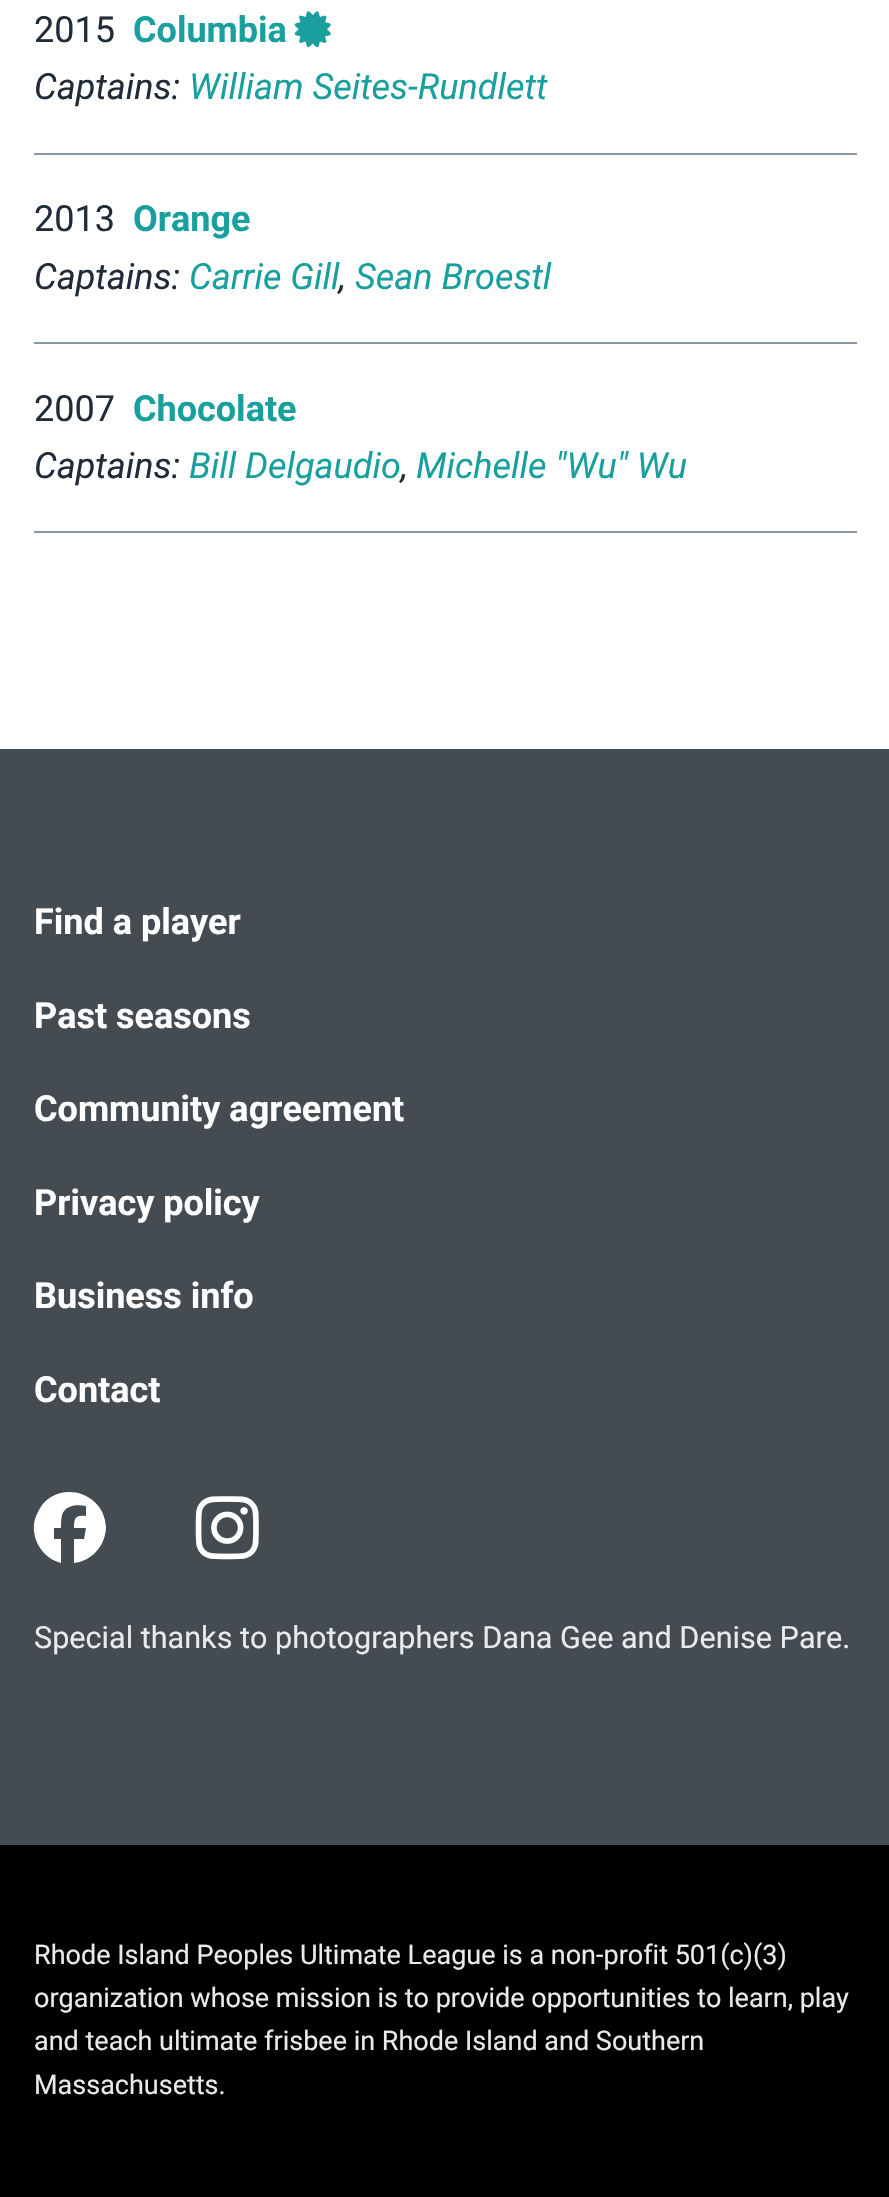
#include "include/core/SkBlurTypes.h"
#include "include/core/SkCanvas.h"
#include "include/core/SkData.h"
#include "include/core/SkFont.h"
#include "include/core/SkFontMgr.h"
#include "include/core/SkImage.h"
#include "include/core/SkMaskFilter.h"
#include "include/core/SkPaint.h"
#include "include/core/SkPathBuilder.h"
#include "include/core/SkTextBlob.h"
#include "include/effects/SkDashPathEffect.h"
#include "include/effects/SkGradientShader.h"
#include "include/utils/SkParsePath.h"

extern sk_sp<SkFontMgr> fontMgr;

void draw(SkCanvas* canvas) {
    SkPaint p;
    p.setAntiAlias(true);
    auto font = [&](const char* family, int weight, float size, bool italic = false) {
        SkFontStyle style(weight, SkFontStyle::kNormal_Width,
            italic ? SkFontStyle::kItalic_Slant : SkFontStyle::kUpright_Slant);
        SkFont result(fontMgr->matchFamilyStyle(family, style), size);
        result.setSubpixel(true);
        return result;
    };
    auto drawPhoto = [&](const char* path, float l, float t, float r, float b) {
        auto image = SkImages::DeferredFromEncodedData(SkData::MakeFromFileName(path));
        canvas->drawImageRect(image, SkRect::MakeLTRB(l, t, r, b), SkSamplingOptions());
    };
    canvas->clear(0xFFFFFFFF);
    auto font1 = font("Roboto", 400, 36);
    p.setColor(0xFF202C39);
    canvas->drawString("2015", 34, 42, font1, p);
    auto font2 = font("Roboto", 700, 36);
    p.setColor(0xFF199F9D);
    canvas->drawString("Columbia", 133, 42, font2, p);
    drawPhoto("media/1.png", 294, 11, 331, 48);
    auto font3 = font("Roboto", 400, 36, true);
    p.setColor(0xFF202C39);
    canvas->drawString("Captains:", 34, 99, font3, p);
    p.setColor(0xFF199F9D);
    canvas->drawString("William Seites-Rundlett", 189, 99, font3, p);
    p.setColor(0xFF8897A3);
    canvas->drawRect(SkRect::MakeLTRB(34, 153, 857, 155), p);
    p.setColor(0xFF202C39);
    canvas->drawString("2013", 34, 231, font1, p);
    p.setColor(0xFF199F9D);
    canvas->drawString("Orange", 133, 231, font2, p);
    p.setColor(0xFF202C39);
    canvas->drawString("Captains:", 34, 289, font3, p);
    p.setColor(0xFF199F9D);
    canvas->drawString("Carrie Gill", 189, 289, font3, p);
    p.setColor(0xFF202C39);
    canvas->drawString(",", 339, 289, font3, p);
    p.setColor(0xFF199F9D);
    canvas->drawString("Sean Broestl", 355, 289, font3, p);
    p.setColor(0xFF8897A3);
    canvas->drawRect(SkRect::MakeLTRB(34, 342, 857, 344), p);
    canvas->drawRect(SkRect::MakeLTRB(34, 531, 857, 533), p);
    p.setColor(0xFF202C39);
    canvas->drawString("2007", 34, 421, font1, p);
    p.setColor(0xFF199F9D);
    canvas->drawString("Chocolate", 133, 421, font2, p);
    p.setColor(0xFF202C39);
    canvas->drawString("Captains:", 34, 478, font3, p);
    p.setColor(0xFF199F9D);
    canvas->drawString("Bill Delgaudio", 189, 478, font3, p);
    p.setColor(0xFF202C39);
    canvas->drawString(",", 401, 478, font3, p);
    p.setColor(0xFF199F9D);
    canvas->drawString("Michelle \"Wu\" Wu", 416, 478, font3, p);
    p.setColor(0xFF444C52);
    canvas->drawRect(SkRect::MakeLTRB(0, 749, 889, 1845), p);
    p.setColor(0xFFFFFFFF);
    {
        const struct { const char* s; float x, y; } items[] = {
            {"Find a player", 34, 934},
            {"Past seasons", 34, 1028},
            {"Community agreement", 34, 1121},
            {"Privacy policy", 34, 1215},
            {"Business info", 34, 1308},
            {"Contact", 34, 1402},
        };
        for (auto [s, x, y] : items) {
            canvas->drawString(s, x, y, font2, p);
        }
    }
    canvas->drawPath(SkPathBuilder().moveTo(106, 1528).cubicTo(105, 1489, 52, 1478, 37, 1514).cubicTo(33, 1522, 33, 1531, 36, 1540).cubicTo(40, 1551, 49, 1560, 61, 1563).lineTo(61, 1539).lineTo(54, 1539).lineTo(54, 1528).lineTo(61, 1528).cubicTo(61, 1524, 61, 1519, 62, 1515).cubicTo(65, 1505, 77, 1504, 86, 1506).lineTo(86, 1516).cubicTo(76, 1515, 74, 1517, 74, 1528).lineTo(86, 1528).lineTo(84, 1539).lineTo(74, 1539).lineTo(74, 1563).cubicTo(92, 1561, 105, 1546, 106, 1528).close().detach(), p);
    drawPhoto("media/2.png", 195, 1496, 259, 1560);
    auto font4 = font("Roboto", 400, 30.6f);
    p.setColor(0xFFE9EAEB);
    canvas->drawString("Special thanks to photographers Dana Gee and Denise Pare.", 34, 1648, font4, p);
    p.setColor(0xFF000000);
    canvas->drawRect(SkRect::MakeLTRB(0, 1845, 889, 2197), p);
    auto font5 = font("Roboto", 400, 27);
    p.setColor(0xFFE9EAEB);
    {
        const struct { const char* s; float x, y; } items[] = {
            {"Rhode Island Peoples Ultimate League is a non-profit 501(c)(3)", 34, 1964},
            {"organization whose mission is to provide opportunities to learn, play", 34, 2007},
            {"and teach ultimate frisbee in Rhode Island and Southern", 34, 2050},
            {"Massachusetts.", 34, 2094},
        };
        for (auto [s, x, y] : items) {
            canvas->drawString(s, x, y, font5, p);
        }
    }
}
